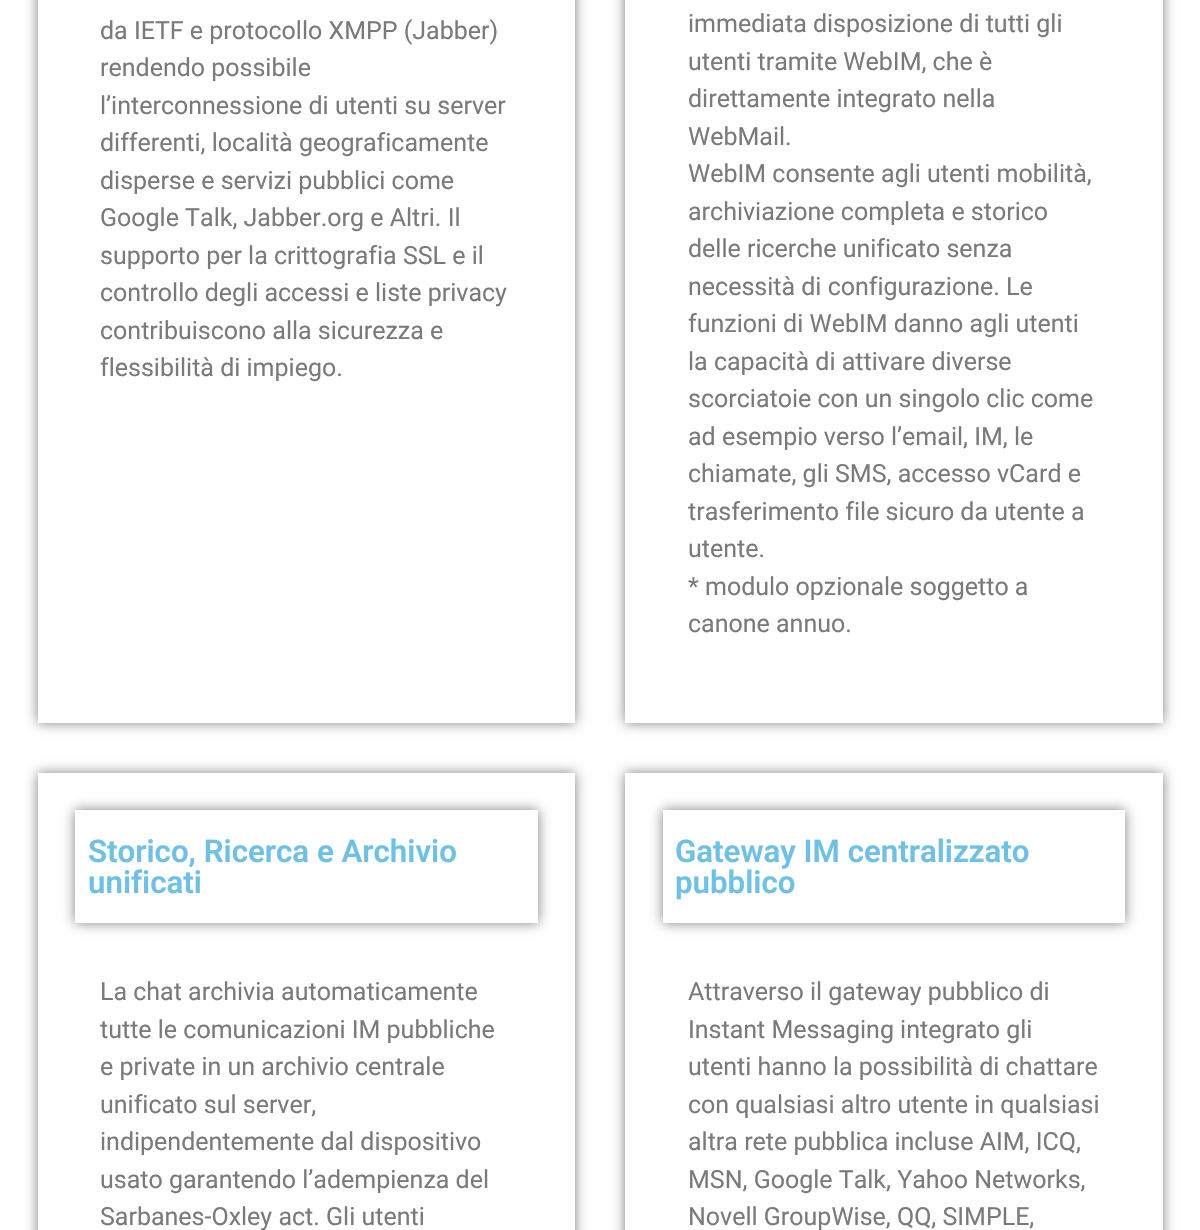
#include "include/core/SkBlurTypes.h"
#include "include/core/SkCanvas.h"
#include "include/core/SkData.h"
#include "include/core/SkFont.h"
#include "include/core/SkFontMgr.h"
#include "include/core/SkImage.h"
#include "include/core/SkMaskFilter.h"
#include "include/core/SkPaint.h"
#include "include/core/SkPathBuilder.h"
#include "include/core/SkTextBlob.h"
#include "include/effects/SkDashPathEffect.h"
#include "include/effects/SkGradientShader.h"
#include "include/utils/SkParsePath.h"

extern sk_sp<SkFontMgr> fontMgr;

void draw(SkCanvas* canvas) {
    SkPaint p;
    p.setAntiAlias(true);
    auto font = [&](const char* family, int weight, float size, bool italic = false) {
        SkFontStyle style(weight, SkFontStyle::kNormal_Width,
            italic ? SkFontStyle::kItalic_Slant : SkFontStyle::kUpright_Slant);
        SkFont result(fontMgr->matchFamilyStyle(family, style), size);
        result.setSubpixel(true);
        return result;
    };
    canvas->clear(0xFFFFFFFF);
    canvas->save();
    canvas->clipPath(SkPathBuilder(SkPathFillType::kEvenOdd).moveTo(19, 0).lineTo(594, 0).lineTo(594, 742).lineTo(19, 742).close().moveTo(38, -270).lineTo(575, -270).lineTo(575, 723).lineTo(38, 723).close().detach(), true);
    p.setColor(0x80000000);
    p.setMaskFilter(SkMaskFilter::MakeBlur(kNormal_SkBlurStyle, 6));
    canvas->drawRect(SkRect::MakeLTRB(38, -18, 575, 723), p);
    p.setMaskFilter(nullptr);
    canvas->restore();
    auto font1 = font("Roboto", 400, 25);
    p.setColor(0xFF7A7A7A);
    {
        const struct { const char* s; float x, y; } items[] = {
            {"da IETF e protocollo XMPP (Jabber)", 100, 39},
            {"rendendo possibile", 100, 76},
            {"l’interconnessione di utenti su server", 100, 114},
            {"differenti, località geograficamente", 100, 151},
            {"disperse e servizi pubblici come", 100, 189},
            {"Google Talk, Jabber.org e Altri. Il", 100, 226},
            {"supporto per la crittografia SSL e il", 100, 264},
            {"controllo degli accessi e liste privacy", 100, 301},
            {"contribuiscono alla sicurezza e", 100, 339},
            {"flessibilità di impiego.", 100, 376},
        };
        for (auto [s, x, y] : items) {
            canvas->drawString(s, x, y, font1, p);
        }
    }
    canvas->save();
    canvas->clipPath(SkPathBuilder(SkPathFillType::kEvenOdd).moveTo(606, 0).lineTo(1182, 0).lineTo(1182, 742).lineTo(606, 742).close().moveTo(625, -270).lineTo(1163, -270).lineTo(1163, 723).lineTo(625, 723).close().detach(), true);
    p.setColor(0x80000000);
    p.setMaskFilter(SkMaskFilter::MakeBlur(kNormal_SkBlurStyle, 6));
    canvas->drawRect(SkRect::MakeLTRB(625, -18, 1163, 723), p);
    p.setMaskFilter(nullptr);
    canvas->restore();
    p.setColor(0xFF7A7A7A);
    {
        const struct { const char* s; float x, y; } items[] = {
            {"immediata disposizione di tutti gli", 688, 32},
            {"utenti tramite WebIM, che è", 688, 70},
            {"direttamente integrato nella", 688, 107},
            {"WebMail.", 688, 145},
            {"WebIM consente agli utenti mobilità,", 688, 182},
            {"archiviazione completa e storico", 688, 220},
            {"delle ricerche unificato senza", 688, 257},
            {"necessità di configurazione. Le", 688, 295},
            {"funzioni di WebIM danno agli utenti", 688, 332},
            {"la capacità di attivare diverse", 688, 370},
            {"scorciatoie con un singolo clic come", 688, 407},
            {"ad esempio verso l’email, IM, le", 688, 445},
            {"chiamate, gli SMS, accesso vCard e", 688, 482},
            {"trasferimento file sicuro da utente a", 688, 520},
            {"utente.", 688, 557},
            {"* modulo opzionale soggetto a", 688, 595},
            {"canone annuo.", 688, 632},
        };
        for (auto [s, x, y] : items) {
            canvas->drawString(s, x, y, font1, p);
        }
    }
    canvas->save();
    canvas->clipPath(SkPathBuilder(SkPathFillType::kEvenOdd).moveTo(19, 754).lineTo(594, 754).lineTo(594, 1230).lineTo(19, 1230).close().moveTo(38, 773).lineTo(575, 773).lineTo(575, 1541).lineTo(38, 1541).close().detach(), true);
    p.setColor(0x80000000);
    p.setMaskFilter(SkMaskFilter::MakeBlur(kNormal_SkBlurStyle, 6));
    canvas->drawRect(SkRect::MakeLTRB(38, 773, 575, 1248), p);
    p.setMaskFilter(nullptr);
    canvas->restore();
    canvas->save();
    canvas->clipPath(SkPathBuilder(SkPathFillType::kEvenOdd).moveTo(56, 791).lineTo(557, 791).lineTo(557, 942).lineTo(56, 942).close().moveTo(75, 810).lineTo(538, 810).lineTo(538, 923).lineTo(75, 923).close().detach(), true);
    p.setMaskFilter(SkMaskFilter::MakeBlur(kNormal_SkBlurStyle, 6));
    canvas->drawRect(SkRect::MakeLTRB(75, 810, 538, 923), p);
    p.setMaskFilter(nullptr);
    canvas->restore();
    auto font2 = font("Roboto", 600, 31.25f);
    p.setColor(0xFF6EC1E4);
    canvas->drawString("Storico, Ricerca e Archivio", 88, 862, font2, p);
    canvas->drawString("unificati", 88, 893, font2, p);
    p.setColor(0xFF7A7A7A);
    {
        const struct { const char* s; float x, y; } items[] = {
            {"La chat archivia automaticamente", 100, 1000},
            {"tutte le comunicazioni IM pubbliche", 100, 1038},
            {"e private in un archivio centrale", 100, 1075},
            {"unificato sul server,", 100, 1113},
            {"indipendentemente dal dispositivo", 100, 1150},
            {"usato garantendo l’adempienza del", 100, 1188},
            {"Sarbanes-Oxley act. Gli utenti", 100, 1225},
        };
        for (auto [s, x, y] : items) {
            canvas->drawString(s, x, y, font1, p);
        }
    }
    canvas->save();
    canvas->clipPath(SkPathBuilder(SkPathFillType::kEvenOdd).moveTo(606, 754).lineTo(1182, 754).lineTo(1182, 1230).lineTo(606, 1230).close().moveTo(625, 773).lineTo(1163, 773).lineTo(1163, 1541).lineTo(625, 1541).close().detach(), true);
    p.setColor(0x80000000);
    p.setMaskFilter(SkMaskFilter::MakeBlur(kNormal_SkBlurStyle, 6));
    canvas->drawRect(SkRect::MakeLTRB(625, 773, 1163, 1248), p);
    p.setMaskFilter(nullptr);
    canvas->restore();
    canvas->save();
    canvas->clipPath(SkPathBuilder(SkPathFillType::kEvenOdd).moveTo(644, 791).lineTo(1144, 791).lineTo(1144, 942).lineTo(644, 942).close().moveTo(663, 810).lineTo(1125, 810).lineTo(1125, 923).lineTo(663, 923).close().detach(), true);
    p.setMaskFilter(SkMaskFilter::MakeBlur(kNormal_SkBlurStyle, 6));
    canvas->drawRect(SkRect::MakeLTRB(663, 810, 1125, 923), p);
    p.setMaskFilter(nullptr);
    canvas->restore();
    p.setColor(0xFF6EC1E4);
    canvas->drawString("Gateway IM centralizzato", 675, 862, font2, p);
    canvas->drawString("pubblico", 675, 893, font2, p);
    p.setColor(0xFF7A7A7A);
    {
        const struct { const char* s; float x, y; } items[] = {
            {"Attraverso il gateway pubblico di", 688, 1000},
            {"Instant Messaging integrato gli", 688, 1038},
            {"utenti hanno la possibilità di chattare", 688, 1075},
            {"con qualsiasi altro utente in qualsiasi", 688, 1113},
            {"altra rete pubblica incluse AIM, ICQ,", 688, 1150},
            {"MSN, Google Talk, Yahoo Networks,", 688, 1188},
            {"Novell GroupWise, QQ, SIMPLE,", 688, 1225},
        };
        for (auto [s, x, y] : items) {
            canvas->drawString(s, x, y, font1, p);
        }
    }
}
